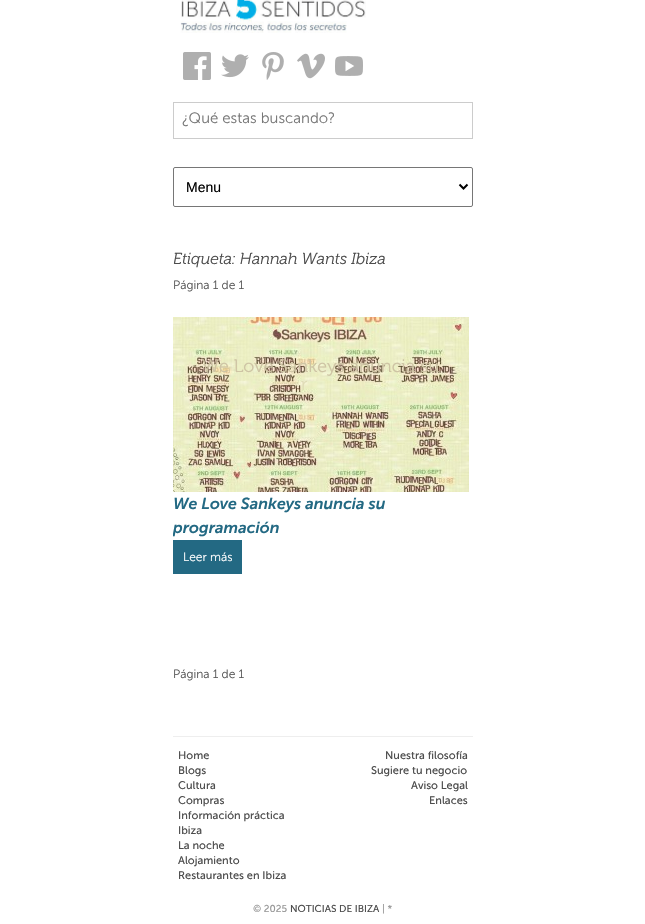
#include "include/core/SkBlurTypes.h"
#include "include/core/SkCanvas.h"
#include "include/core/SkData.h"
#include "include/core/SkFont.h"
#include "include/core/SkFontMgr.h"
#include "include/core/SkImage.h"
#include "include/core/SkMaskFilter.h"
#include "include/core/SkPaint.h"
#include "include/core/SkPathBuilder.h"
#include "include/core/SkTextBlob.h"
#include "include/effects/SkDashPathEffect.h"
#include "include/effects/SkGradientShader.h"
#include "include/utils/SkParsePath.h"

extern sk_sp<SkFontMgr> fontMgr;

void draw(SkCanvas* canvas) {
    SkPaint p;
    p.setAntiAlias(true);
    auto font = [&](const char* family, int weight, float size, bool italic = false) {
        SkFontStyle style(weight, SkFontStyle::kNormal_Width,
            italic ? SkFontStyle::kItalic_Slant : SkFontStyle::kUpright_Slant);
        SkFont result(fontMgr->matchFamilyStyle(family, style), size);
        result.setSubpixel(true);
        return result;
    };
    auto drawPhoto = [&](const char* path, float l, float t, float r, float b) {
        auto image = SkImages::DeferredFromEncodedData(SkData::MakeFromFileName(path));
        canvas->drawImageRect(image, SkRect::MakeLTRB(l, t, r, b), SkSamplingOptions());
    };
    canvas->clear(0xFFFFFFFF);
    drawPhoto("media/1.png", 180, 0, 366, 33);
    drawPhoto("media/2.png", 183, 52, 211, 80);
    drawPhoto("media/3.png", 221, 54, 249, 78);
    drawPhoto("media/4.png", 262, 52, 284, 80);
    drawPhoto("media/5.png", 297, 53, 325, 79);
    drawPhoto("media/6.png", 335, 56, 363, 76);
    p.setStyle(SkPaint::kStroke_Style);
    p.setStrokeWidth(1);
    p.setColor(0xFFCCCCCC);
    canvas->drawRect(SkRect::MakeLTRB(173.5f, 102.5f, 472.5f, 138.5f), p);
    auto font1 = font("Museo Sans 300", 300, 15);
    p.setStyle(SkPaint::kFill_Style);
    p.setColor(0xFF777777);
    canvas->drawString("¿Qué estas buscando?", 182, 123, font1, p);
    p.setStyle(SkPaint::kStroke_Style);
    p.setColor(0xFF767676);
    canvas->drawRoundRect(SkRect::MakeLTRB(173.5f, 167.5f, 472.5f, 206.5f), 1.5f, 1.5f, p);
    p.setStrokeWidth(2);
    p.setColor(0xFF000000);
    canvas->drawPath(SkPathBuilder().moveTo(459.5f, 184.5f).lineTo(463.5f, 188.5f).lineTo(467.5f, 184.5f).detach(), p);
    auto font2 = font("Liberation Sans", 400, 14);
    p.setStyle(SkPaint::kFill_Style);
    canvas->drawString("Menu", 186, 192, font2, p);
    auto font3 = font("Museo", 300, 16, true);
    p.setColor(0xFF4C4C4C);
    canvas->drawString("Etiqueta: Hannah Wants Ibiza", 173, 264, font3, p);
    auto font4 = font("Museo Sans 300", 300, 12);
    p.setColor(0xFF555555);
    canvas->drawString("Página 1 de 1", 173, 289, font4, p);
    drawPhoto("media/7.png", 173, 317, 469, 492);
    auto font5 = font("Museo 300", 300, 18);
    p.setColor(0xFFCEC4A4);
    canvas->drawString("We Love Sankeys anuncia su", 202, 372, font5, p);
    p.setColor(0xFFDFDCB6);
    canvas->drawString("r", 301, 390, font5, p);
    auto font6 = font("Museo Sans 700", 600, 16, true);
    p.setColor(0xFF236983);
    canvas->drawString("We Love Sankeys anuncia su", 173, 509, font6, p);
    canvas->save();
    canvas->clipRect(SkRect::MakeLTRB(173, 0, 473, 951));
    canvas->drawString("programación", 173, 533, font6, p);
    canvas->restore();
    canvas->drawRect(SkRect::MakeLTRB(173, 540, 242, 574), p);
    p.setColor(0xFFFFFFFF);
    canvas->drawString("Leer más", 183, 561, font4, p);
    p.setColor(0xFF555555);
    canvas->drawString("Página 1 de 1", 173, 678, font4, p);
    p.setColor(0xFFEEEEEE);
    canvas->drawRect(SkRect::MakeLTRB(173, 736, 473, 737), p);
    auto font7 = font("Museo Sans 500", 400, 11);
    p.setColor(0xFF4C4C4C);
    {
        const struct { const char* s; float x, y; } items[] = {
            {"Home", 178, 759},
            {"Blogs", 178, 774},
            {"Cultura", 178, 789},
            {"Compras", 178, 804},
            {"Información práctica", 178, 819},
            {"Ibiza", 178, 834},
            {"La noche", 178, 849},
            {"Alojamiento", 178, 864},
            {"Restaurantes en Ibiza", 178, 879},
            {"Nuestra filosofía", 385, 759},
            {"Sugiere tu negocio", 371, 774},
            {"Aviso Legal", 411, 789},
            {"Enlaces", 429, 804},
        };
        for (auto [s, x, y] : items) {
            canvas->drawString(s, x, y, font7, p);
        }
    }
    auto font8 = font("Museo Sans 500", 400, 10);
    p.setColor(0xFF999999);
    canvas->drawString("© 2025", 253, 912, font8, p);
    p.setColor(0xFF4C4C4C);
    canvas->drawString("NOTICIAS DE IBIZA", 290, 912, font8, p);
    p.setColor(0xFF999999);
    canvas->drawString("| *", 382, 912, font8, p);
}
